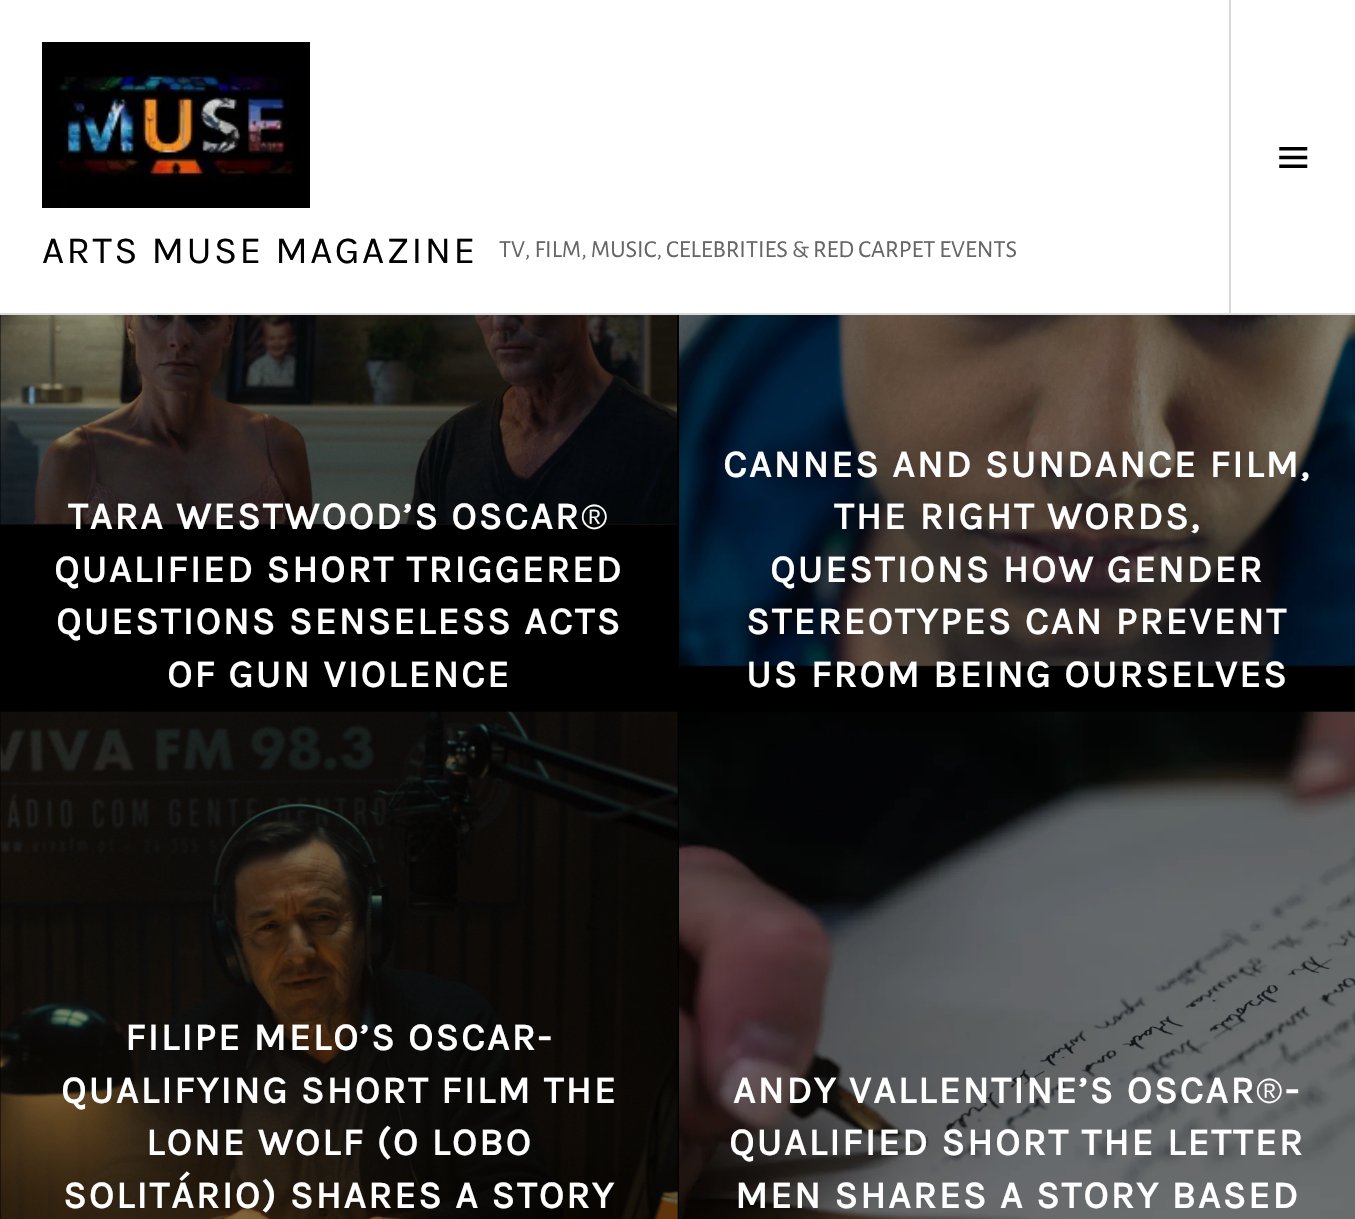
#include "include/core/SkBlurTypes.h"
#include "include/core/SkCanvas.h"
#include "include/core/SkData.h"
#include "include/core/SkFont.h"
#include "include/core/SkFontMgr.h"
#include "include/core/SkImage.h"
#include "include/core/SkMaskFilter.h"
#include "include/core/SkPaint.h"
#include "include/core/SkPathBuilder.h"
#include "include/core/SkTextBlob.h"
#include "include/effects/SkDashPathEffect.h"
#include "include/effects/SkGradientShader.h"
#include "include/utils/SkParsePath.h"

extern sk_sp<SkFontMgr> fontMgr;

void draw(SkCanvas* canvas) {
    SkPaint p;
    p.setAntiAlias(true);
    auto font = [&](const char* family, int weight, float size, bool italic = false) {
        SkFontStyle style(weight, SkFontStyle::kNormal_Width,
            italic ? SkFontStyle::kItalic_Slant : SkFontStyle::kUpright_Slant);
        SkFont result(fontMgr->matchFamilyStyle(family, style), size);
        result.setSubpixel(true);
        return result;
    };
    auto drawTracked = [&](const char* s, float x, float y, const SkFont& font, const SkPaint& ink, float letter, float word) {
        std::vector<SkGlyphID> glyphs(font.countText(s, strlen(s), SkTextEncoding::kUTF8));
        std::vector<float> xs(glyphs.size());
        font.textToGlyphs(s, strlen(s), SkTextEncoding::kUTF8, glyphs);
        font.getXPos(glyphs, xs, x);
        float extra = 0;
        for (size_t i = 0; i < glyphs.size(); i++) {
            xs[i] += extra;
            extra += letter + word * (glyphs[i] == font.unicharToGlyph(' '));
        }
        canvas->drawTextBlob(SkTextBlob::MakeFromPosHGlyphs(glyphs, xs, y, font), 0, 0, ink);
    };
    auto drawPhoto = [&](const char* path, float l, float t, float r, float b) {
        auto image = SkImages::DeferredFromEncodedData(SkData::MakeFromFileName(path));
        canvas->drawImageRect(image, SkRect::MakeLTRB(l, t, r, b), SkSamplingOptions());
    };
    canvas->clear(0xFF000000);
    p.setColor(0xFFFFFFFF);
    canvas->drawRect(SkRect::MakeLTRB(0, 0, 1355, 313), p);
    p.setColor(0xFFD9D9D9);
    canvas->drawRect(SkRect::MakeLTRB(0, 313, 1355, 315), p);
    drawPhoto("media/1.png", 42, 42, 310, 208);
    auto font1 = font("Karla", 400, 38.5f);
    p.setColor(0xFF000000);
    drawTracked("ARTS MUSE MAGAZINE", 42, 263, font1, p, 2.4f, 0);
    auto font2 = font("Alegreya Sans", 400, 24.5f);
    p.setColor(0xFF666666);
    canvas->drawString("TV, FILM, MUSIC, CELEBRITIES & RED CARPET EVENTS", 499, 257, font2, p);
    p.setColor(0xFFD9D9D9);
    canvas->drawRect(SkRect::MakeLTRB(1229, 0, 1231, 313), p);
    drawPhoto("media/2.png", 1279, 147, 1308, 168);
    drawPhoto("media/3.png", 0, 315, 677, 525);
    auto font3 = font("Karla", 700, 38.5f);
    p.setColor(0xFFFFFFFF);
    drawTracked("TARA WESTWOOD’S OSCAR", 68, 529, font3, p, 2.4f, 0);
    drawTracked("®", 581, 529, font1, p, 2.4f, 0);
    {
        const struct { const char* s; float x, y; } items[] = {
            {"QUALIFIED SHORT TRIGGERED", 54, 582},
            {"QUESTIONS SENSELESS ACTS", 56, 634},
            {"OF GUN VIOLENCE", 167, 687},
        };
        for (auto [s, x, y] : items) {
            drawTracked(s, x, y, font3, p, 2.4f, 0);
        }
    }
    drawPhoto("media/4.png", 679, 315, 1355, 667);
    {
        const struct { const char* s; float x, y; } items[] = {
            {"CANNES AND SUNDANCE FILM,", 723, 477},
            {"THE RIGHT WORDS,", 834, 529},
            {"QUESTIONS HOW GENDER", 770, 582},
            {"STEREOTYPES CAN PREVENT", 746, 634},
            {"US FROM BEING OURSELVES", 746, 687},
        };
        for (auto [s, x, y] : items) {
            drawTracked(s, x, y, font3, p, 2.4f, 0);
        }
    }
    drawPhoto("media/5.png", 0, 711, 678, 1219);
    {
        const struct { const char* s; float x, y; } items[] = {
            {"FILIPE MELO’S OSCAR-", 125, 1050},
            {"QUALIFYING SHORT FILM THE", 61, 1103},
            {"LONE WOLF (O LOBO", 146, 1155},
            {"SOLITÁRIO) SHARES A STORY", 63, 1208},
        };
        for (auto [s, x, y] : items) {
            drawTracked(s, x, y, font3, p, 2.4f, 0);
        }
    }
    drawPhoto("media/6.png", 679, 711, 1355, 1219);
    drawTracked("ANDY VALLENTINE’S OSCAR", 733, 1103, font3, p, 2.4f, 0);
    drawTracked("®", 1256, 1103, font1, p, 2.4f, 0);
    {
        const struct { const char* s; float x, y; } items[] = {
            {"-", 1285, 1103},
            {"QUALIFIED SHORT THE LETTER", 729, 1155},
            {"MEN SHARES A STORY BASED", 735, 1208},
        };
        for (auto [s, x, y] : items) {
            drawTracked(s, x, y, font3, p, 2.4f, 0);
        }
    }
}
